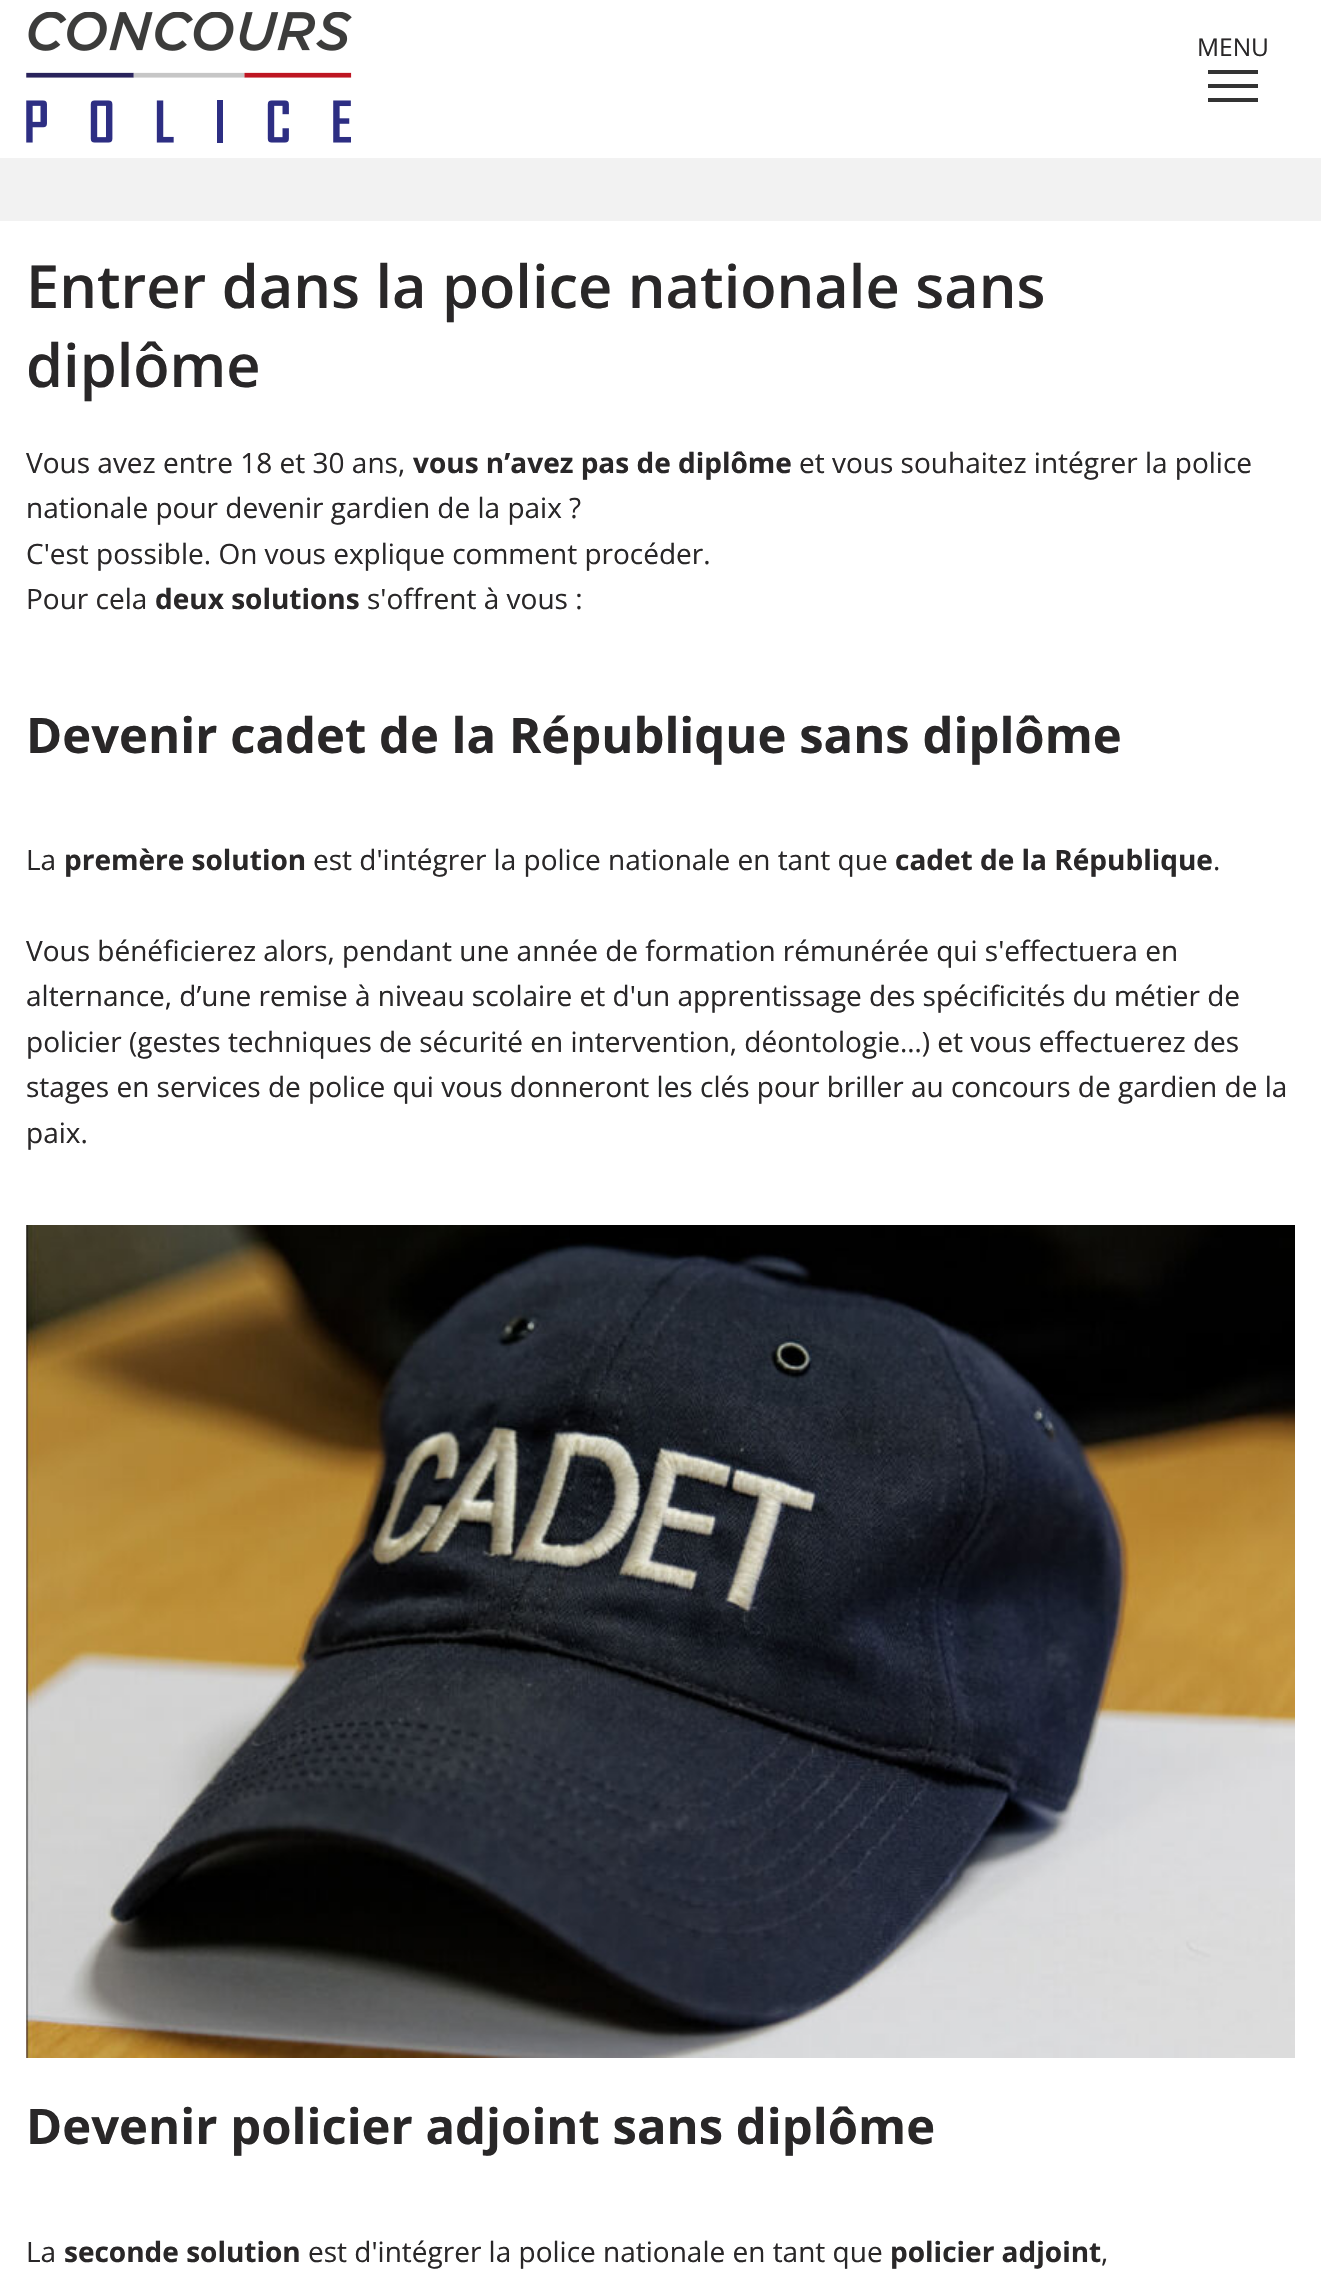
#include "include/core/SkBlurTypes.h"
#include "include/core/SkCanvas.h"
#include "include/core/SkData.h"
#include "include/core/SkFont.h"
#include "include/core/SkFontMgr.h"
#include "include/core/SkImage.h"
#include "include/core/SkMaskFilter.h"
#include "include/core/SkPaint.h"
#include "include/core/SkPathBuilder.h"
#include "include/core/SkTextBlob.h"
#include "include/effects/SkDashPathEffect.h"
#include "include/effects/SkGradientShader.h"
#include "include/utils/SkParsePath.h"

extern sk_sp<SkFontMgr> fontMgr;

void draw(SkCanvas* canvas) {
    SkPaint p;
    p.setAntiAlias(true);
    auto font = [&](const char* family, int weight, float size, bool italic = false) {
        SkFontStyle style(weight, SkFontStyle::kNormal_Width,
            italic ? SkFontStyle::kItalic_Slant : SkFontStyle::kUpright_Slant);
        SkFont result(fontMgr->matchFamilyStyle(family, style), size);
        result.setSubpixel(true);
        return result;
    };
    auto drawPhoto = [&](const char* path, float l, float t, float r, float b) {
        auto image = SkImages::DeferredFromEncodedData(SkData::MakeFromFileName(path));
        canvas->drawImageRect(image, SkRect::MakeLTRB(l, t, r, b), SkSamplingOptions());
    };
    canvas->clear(0xFFF2F2F2);
    p.setColor(0xFFFFFFFF);
    canvas->drawRect(SkRect::MakeLTRB(0, 0, 1321, 158), p);
    drawPhoto("media/1.png", 26, 12, 352, 143);
    auto font1 = font("Open Sans", 400, 24.5f);
    p.setColor(0xFF292728);
    canvas->drawString("MENU", 1197, 56, font1, p);
    {
        const struct { float l, t, r, b; SkColor color; } items[] = {
            {1208, 84, 1258, 88, 0xFF333333},
            {1208, 70, 1258, 74, 0xFF333333},
            {1208, 98, 1258, 102, 0xFF333333},
            {0, 221, 1321, 2287, 0xFFFFFFFF},
        };
        for (auto [l, t, r, b, color] : items) {
            p.setColor(color);
            canvas->drawRect(SkRect::MakeLTRB(l, t, r, b), p);
        }
    }
    auto font2 = font("Open Sans", 600, 59.5f);
    p.setColor(0xFF292728);
    canvas->drawString("Entrer dans la police nationale sans", 26, 308, font2, p);
    canvas->drawString("diplôme", 26, 387, font2, p);
    auto font3 = font("Open Sans", 400, 28);
    canvas->drawString("Vous avez entre 18 et 30 ans,", 26, 473, font3, p);
    auto font4 = font("Open Sans", 700, 28);
    canvas->drawString("vous n’avez pas de diplôme", 413, 473, font4, p);
    {
        const struct { const char* s; float x, y; } items[] = {
            {"et vous souhaitez intégrer la police", 799, 473},
            {"nationale pour devenir gardien de la paix ?", 26, 518},
            {"C'est possible. On vous explique comment procéder.", 26, 564},
            {"Pour cela", 26, 609},
        };
        for (auto [s, x, y] : items) {
            canvas->drawString(s, x, y, font3, p);
        }
    }
    canvas->drawString("deux solutions", 155, 609, font4, p);
    canvas->drawString("s'offrent à vous :", 367, 609, font3, p);
    auto font5 = font("Open Sans", 700, 49);
    canvas->drawString("Devenir cadet de la République sans diplôme", 26, 753, font5, p);
    canvas->drawString("La", 26, 870, font3, p);
    canvas->drawString("premère solution", 64, 870, font4, p);
    canvas->drawString("est d'intégrer la police nationale en tant que", 313, 870, font3, p);
    canvas->drawString("cadet de la République", 895, 870, font4, p);
    {
        const struct { const char* s; float x, y; } items[] = {
            {".", 1213, 870},
            {"Vous bénéficierez alors, pendant une année de formation rémunérée qui s'effectuera en", 26, 961},
            {"alternance, d’une remise à niveau scolaire et d'un apprentissage des spécificités du métier de", 26, 1006},
            {"policier (gestes techniques de sécurité en intervention, déontologie…) et vous effectuerez des", 26, 1052},
            {"stages en services de police qui vous donneront les clés pour briller au concours de gardien de la", 26, 1097},
            {"paix.", 26, 1143},
        };
        for (auto [s, x, y] : items) {
            canvas->drawString(s, x, y, font3, p);
        }
    }
    drawPhoto("media/2.png", 26, 1225, 1295, 2058);
    canvas->drawString("Devenir policier adjoint sans diplôme", 26, 2144, font5, p);
    canvas->drawString("La", 26, 2262, font3, p);
    canvas->drawString("seconde solution", 64, 2262, font4, p);
    canvas->drawString("est d'intégrer la police nationale en tant que", 308, 2262, font3, p);
    canvas->drawString("policier adjoint", 890, 2262, font4, p);
    canvas->drawString(",", 1101, 2262, font3, p);
}
